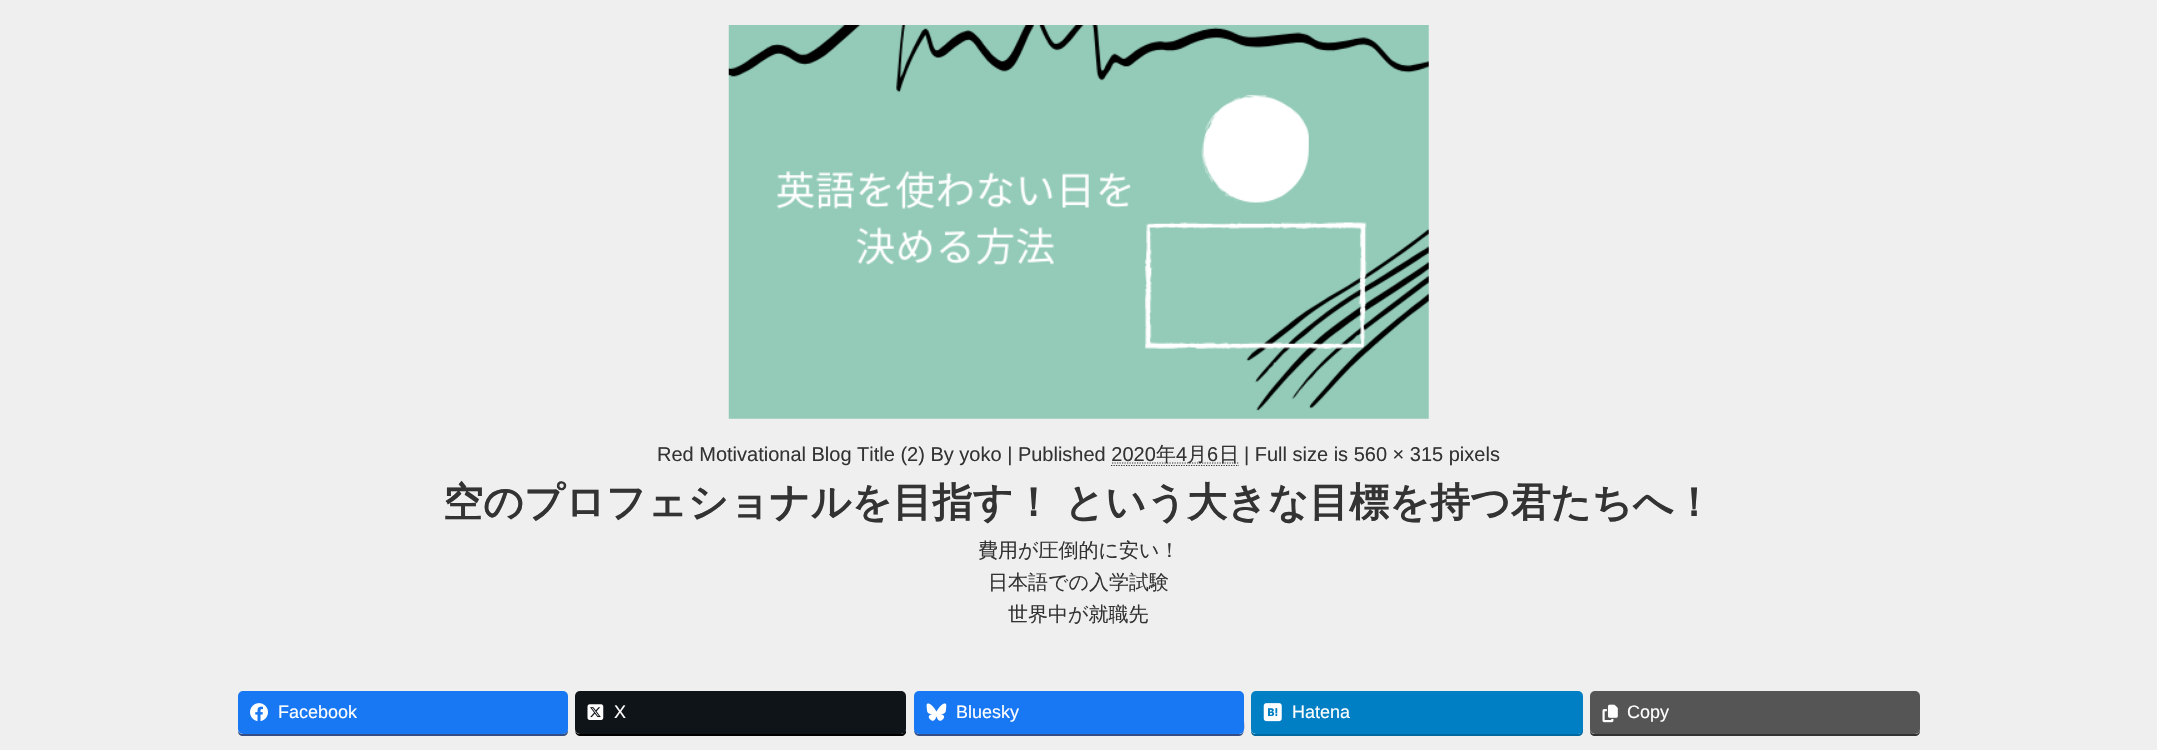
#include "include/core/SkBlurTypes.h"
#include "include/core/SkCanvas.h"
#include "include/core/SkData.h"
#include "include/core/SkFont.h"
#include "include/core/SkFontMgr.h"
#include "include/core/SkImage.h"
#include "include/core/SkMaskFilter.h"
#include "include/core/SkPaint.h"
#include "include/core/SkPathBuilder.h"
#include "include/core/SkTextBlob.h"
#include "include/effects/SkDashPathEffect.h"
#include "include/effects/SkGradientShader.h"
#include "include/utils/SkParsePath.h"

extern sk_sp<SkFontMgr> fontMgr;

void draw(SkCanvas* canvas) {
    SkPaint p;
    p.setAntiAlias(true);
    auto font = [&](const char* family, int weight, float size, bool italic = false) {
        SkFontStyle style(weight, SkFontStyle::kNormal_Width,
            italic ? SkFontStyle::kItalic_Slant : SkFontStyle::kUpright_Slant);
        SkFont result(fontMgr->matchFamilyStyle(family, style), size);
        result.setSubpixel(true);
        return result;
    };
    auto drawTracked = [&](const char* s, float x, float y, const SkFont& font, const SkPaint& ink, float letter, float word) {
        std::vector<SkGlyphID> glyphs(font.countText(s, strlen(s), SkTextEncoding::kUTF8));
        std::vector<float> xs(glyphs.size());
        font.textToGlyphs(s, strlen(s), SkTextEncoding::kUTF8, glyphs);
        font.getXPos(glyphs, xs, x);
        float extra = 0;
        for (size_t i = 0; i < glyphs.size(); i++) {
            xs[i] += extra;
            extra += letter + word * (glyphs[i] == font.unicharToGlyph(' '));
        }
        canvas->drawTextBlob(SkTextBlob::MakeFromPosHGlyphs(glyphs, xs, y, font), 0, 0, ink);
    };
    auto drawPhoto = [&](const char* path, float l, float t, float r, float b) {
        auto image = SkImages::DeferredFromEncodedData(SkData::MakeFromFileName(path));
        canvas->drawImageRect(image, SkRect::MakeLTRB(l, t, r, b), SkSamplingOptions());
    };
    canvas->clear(0xFFEFEFEF);
    drawPhoto("media/1.png", 728, 25, 1429, 419);
    auto font1 = font("Liberation Sans", 400, 20);
    p.setColor(0xFF333333);
    canvas->drawString("Red Motivational Blog Title (2) By yoko | Published 2020", 657, 461, font1, p);
    p.setStyle(SkPaint::kStroke_Style);
    p.setStrokeWidth(1.2f);
    p.setPathEffect(SkDashPathEffect::Make({{1.25f, 1.25f}}, 0));
    canvas->drawPath(SkPathBuilder().moveTo(1112, 463).lineTo(1238.5f, 463).detach(), p);
    p.setPathEffect(nullptr);
    auto font2 = font("WenQuanYi Zen Hei", 500, 20);
    p.setStyle(SkPaint::kFill_Style);
    canvas->drawString("年", 1156, 461, font2, p);
    canvas->drawString("4", 1176, 461, font1, p);
    canvas->drawString("月", 1187, 461, font2, p);
    p.setStyle(SkPaint::kStroke_Style);
    p.setPathEffect(SkDashPathEffect::Make({{1.25f, 1.25f}}, 0));
    canvas->drawPath(SkPathBuilder().moveTo(1111, 465.5f).lineTo(1239, 465.5f).detach(), p);
    p.setPathEffect(nullptr);
    p.setStyle(SkPaint::kFill_Style);
    canvas->drawString("6", 1207, 461, font1, p);
    canvas->drawString("日", 1219, 461, font2, p);
    canvas->drawString("| Full size is 560 × 315 pixels", 1244, 461, font1, p);
    auto font3 = font("WenQuanYi Zen Hei", 700, 40);
    drawTracked("空のプロフェショナルを目指す！ という大きな目標を持つ君たちへ！", 443, 516, font3, p, 0, -1);
    {
        const struct { const char* s; float x, y; } items[] = {
            {"費用が圧倒的に安い！", 978, 557},
            {"日本語での入学試験", 988, 589},
            {"世界中が就職先", 1008, 621},
        };
        for (auto [s, x, y] : items) {
            canvas->drawString(s, x, y, font2, p);
        }
    }
    p.setColor(0xFF344E84);
    canvas->drawPath(SkPathBuilder().moveTo(238, 731).cubicTo(238, 734, 240, 736, 243, 736).lineTo(563, 736).cubicTo(566, 736, 568, 734, 568, 731).lineTo(568, 699).lineTo(568, 697).lineTo(568, 729).cubicTo(568, 732, 565, 734, 562, 734).lineTo(242, 734).cubicTo(241, 734, 239, 733, 238, 731).close().detach(), p);
    p.setColor(0xFF1877F2);
    canvas->drawRoundRect(SkRect::MakeLTRB(238, 691, 568, 734), 5, 5, p);
    drawPhoto("media/2.png", 250, 703, 268, 722);
    auto font4 = font("Liberation Sans", 400, 18);
    p.setColor(0xFFFFFFFF);
    canvas->drawString("Facebook", 278, 718, font4, p);
    p.setColor(0xFF000000);
    canvas->drawPath(SkPathBuilder().moveTo(575, 729).cubicTo(575, 732, 576, 736, 580, 736).lineTo(902, 736).cubicTo(904, 736, 905, 734, 906, 733).lineTo(906, 730).cubicTo(905, 732, 903, 734, 901, 734).lineTo(580, 734).cubicTo(577, 734, 575, 732, 575, 729).close().detach(), p);
    p.setColor(0xFF0F1419);
    canvas->drawRoundRect(SkRect::MakeLTRB(575, 691, 906, 734), 5, 5, p);
    drawPhoto("media/3.png", 587, 704, 604, 720);
    p.setColor(0xFFFFFFFF);
    canvas->drawString("X", 614, 718, font4, p);
    p.setColor(0xFF344E84);
    canvas->drawPath(SkPathBuilder().moveTo(914, 730).cubicTo(914, 733, 916, 736, 919, 736).lineTo(1239, 736).cubicTo(1246, 736, 1244, 724, 1244, 720).lineTo(1244, 697).lineTo(1244, 729).cubicTo(1244, 732, 1242, 734, 1239, 734).lineTo(919, 734).cubicTo(917, 734, 915, 732, 914, 730).close().detach(), p);
    p.setColor(0xFF1877F2);
    canvas->drawRoundRect(SkRect::MakeLTRB(914, 691, 1244, 734), 5, 5, p);
    drawPhoto("media/4.png", 926, 703, 947, 721);
    p.setColor(0xFFFFFFFF);
    canvas->drawString("Bluesky", 956, 718, font4, p);
    p.setColor(0xFF00679F);
    canvas->drawPath(SkPathBuilder().moveTo(1251, 697).lineTo(1251, 731).cubicTo(1251, 734, 1253, 736, 1256, 736).lineTo(1578, 736).cubicTo(1581, 736, 1583, 734, 1583, 731).lineTo(1583, 699).lineTo(1582, 697).lineTo(1582, 729).cubicTo(1582, 732, 1580, 734, 1578, 734).lineTo(1256, 734).cubicTo(1253, 734, 1251, 732, 1251, 729).close().detach(), p);
    p.setColor(0xFF007FC5);
    canvas->drawRoundRect(SkRect::MakeLTRB(1251, 691, 1583, 734), 5, 5, p);
    drawPhoto("media/5.png", 1263, 703, 1282, 722);
    p.setColor(0xFFFFFFFF);
    canvas->drawString("Hatena", 1292, 718, font4, p);
    p.setColor(0xFF333333);
    canvas->drawPath(SkPathBuilder().moveTo(1590, 729).lineTo(1590, 731).cubicTo(1590, 734, 1592, 736, 1595, 736).lineTo(1915, 736).cubicTo(1918, 736, 1920, 734, 1920, 731).lineTo(1920, 729).cubicTo(1920, 732, 1918, 734, 1915, 734).lineTo(1595, 734).cubicTo(1592, 734, 1590, 732, 1590, 729).close().detach(), p);
    p.setColor(0xFF555555);
    canvas->drawRoundRect(SkRect::MakeLTRB(1590, 691, 1920, 734), 5, 5, p);
    drawPhoto("media/6.png", 1602, 704, 1618, 723);
    p.setColor(0xFFFFFFFF);
    canvas->drawString("Copy", 1627, 718, font4, p);
}
